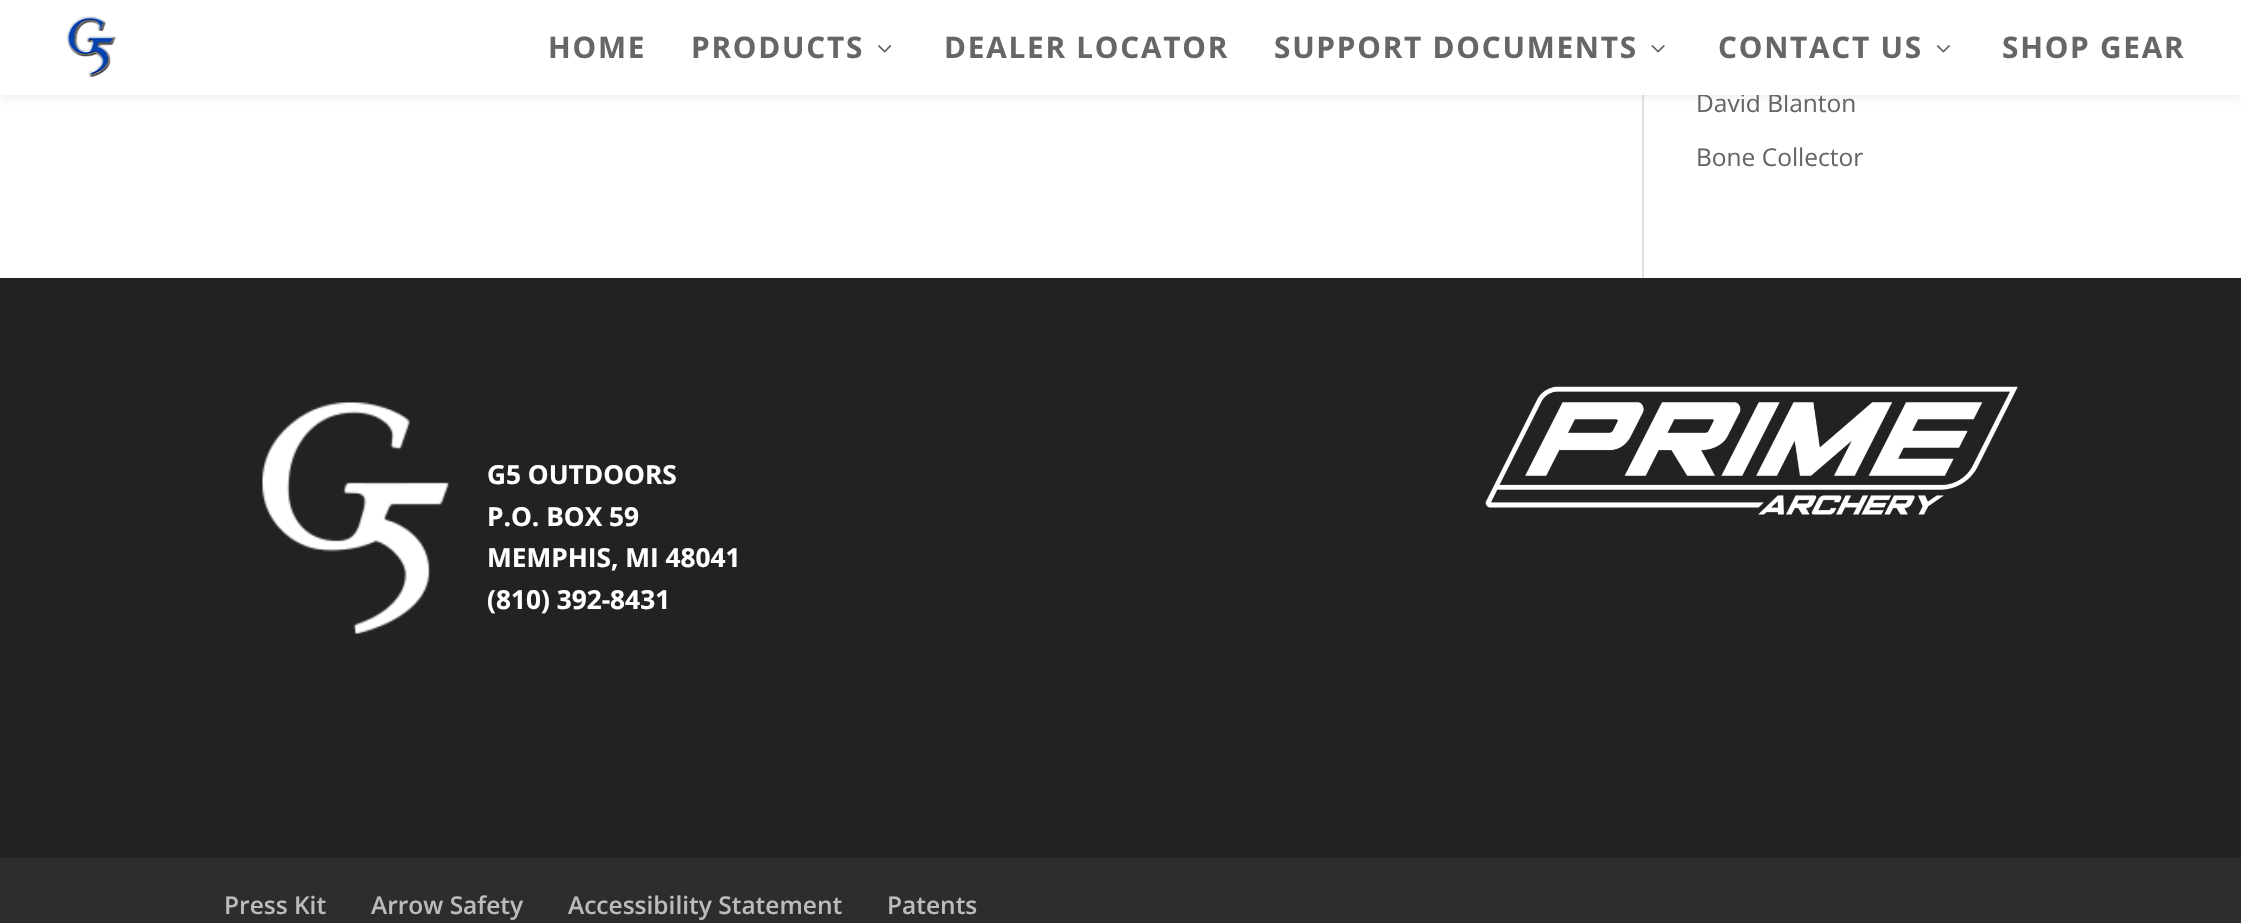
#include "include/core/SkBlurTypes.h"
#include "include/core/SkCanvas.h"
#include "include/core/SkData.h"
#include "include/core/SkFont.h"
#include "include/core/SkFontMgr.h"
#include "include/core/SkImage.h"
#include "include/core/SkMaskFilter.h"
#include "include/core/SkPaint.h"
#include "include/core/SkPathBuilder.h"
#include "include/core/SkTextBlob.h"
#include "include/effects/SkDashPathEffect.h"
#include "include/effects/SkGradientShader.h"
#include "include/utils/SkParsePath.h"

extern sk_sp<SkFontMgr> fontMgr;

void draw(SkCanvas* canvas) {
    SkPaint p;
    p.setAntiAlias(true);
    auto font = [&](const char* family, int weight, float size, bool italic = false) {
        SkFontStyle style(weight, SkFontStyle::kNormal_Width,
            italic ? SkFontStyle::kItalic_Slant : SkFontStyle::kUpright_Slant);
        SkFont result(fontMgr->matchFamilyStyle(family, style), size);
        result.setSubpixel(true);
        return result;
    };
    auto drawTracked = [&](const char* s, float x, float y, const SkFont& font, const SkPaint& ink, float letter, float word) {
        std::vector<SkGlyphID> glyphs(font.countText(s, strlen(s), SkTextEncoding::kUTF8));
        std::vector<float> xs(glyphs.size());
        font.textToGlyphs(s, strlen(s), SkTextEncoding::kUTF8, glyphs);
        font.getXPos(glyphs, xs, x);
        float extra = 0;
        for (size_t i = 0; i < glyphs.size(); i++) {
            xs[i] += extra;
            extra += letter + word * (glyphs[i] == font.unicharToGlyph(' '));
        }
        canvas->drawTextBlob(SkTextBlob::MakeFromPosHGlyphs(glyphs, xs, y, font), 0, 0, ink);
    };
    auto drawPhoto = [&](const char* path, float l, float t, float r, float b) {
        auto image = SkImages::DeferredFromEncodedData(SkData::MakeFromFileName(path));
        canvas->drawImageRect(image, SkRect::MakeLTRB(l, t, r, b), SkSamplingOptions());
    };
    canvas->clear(0xFFFFFFFF);
    p.setColor(0xFFE2E2E2);
    canvas->drawRect(SkRect::MakeLTRB(1642, 95, 1644, 278), p);
    p.setColor(0x1A000000);
    p.setMaskFilter(SkMaskFilter::MakeBlur(kNormal_SkBlurStyle, 6));
    canvas->drawRect(SkRect::MakeLTRB(0, 0, 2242, 95), p);
    p.setMaskFilter(nullptr);
    auto font1 = font("Open Sans", 400, 24.5f);
    p.setColor(0xFF666666);
    canvas->drawString("David Blanton", 1696, 112, font1, p);
    p.setColor(0xFFFFFFFF);
    canvas->drawRect(SkRect::MakeLTRB(0, 0, 2241, 95), p);
    drawPhoto("media/1.png", 66, 16, 117, 78);
    auto font2 = font("Open Sans", 700, 29.75f);
    p.setColor(0xFF666666);
    drawTracked("HOME", 548, 58, font2, p, 1.75f, 0);
    drawTracked("PRODUCTS", 691, 58, font2, p, 1.75f, 0);
    drawPhoto("media/2.png", 878, 45, 892, 53);
    drawTracked("DEALER LOCATOR", 944, 58, font2, p, 1.75f, 0);
    drawTracked("SUPPORT DOCUMENTS", 1274, 58, font2, p, 1.75f, 0);
    drawPhoto("media/3.png", 1651, 45, 1665, 53);
    drawTracked("CONTACT US", 1718, 58, font2, p, 1.75f, 0);
    drawPhoto("media/4.png", 1936, 45, 1950, 53);
    drawTracked("SHOP GEAR", 2002, 58, font2, p, 1.75f, 0);
    canvas->drawString("Bone Collector", 1696, 166, font1, p);
    p.setColor(0xFF222222);
    canvas->drawRect(SkRect::MakeLTRB(0, 278, 2241, 858), p);
    drawPhoto("media/5.png", 1485, 386, 2018, 515);
    drawPhoto("media/6.png", 262, 402, 449, 634);
    auto font3 = font("Open Sans", 700, 26.25f);
    p.setColor(0xFFFFFFFF);
    {
        const struct { const char* s; float x, y; } items[] = {
            {"G5 OUTDOORS", 487, 484},
            {"P.O. BOX 59", 487, 526},
            {"MEMPHIS, MI 48041", 487, 567},
            {"(810) 392-8431", 487, 609},
        };
        for (auto [s, x, y] : items) {
            canvas->drawString(s, x, y, font3, p);
        }
    }
    p.setColor(0xFF2D2D2D);
    canvas->drawRect(SkRect::MakeLTRB(0, 858, 2241, 923), p);
    auto font4 = font("Open Sans", 600, 24.5f);
    p.setColor(0xFFBBBBBB);
    {
        const struct { const char* s; float x, y; } items[] = {
            {"Press Kit", 224, 914},
            {"Arrow Safety", 371, 914},
            {"Accessibility Statement", 568, 914},
            {"Patents", 887, 914},
        };
        for (auto [s, x, y] : items) {
            canvas->drawString(s, x, y, font4, p);
        }
    }
}
